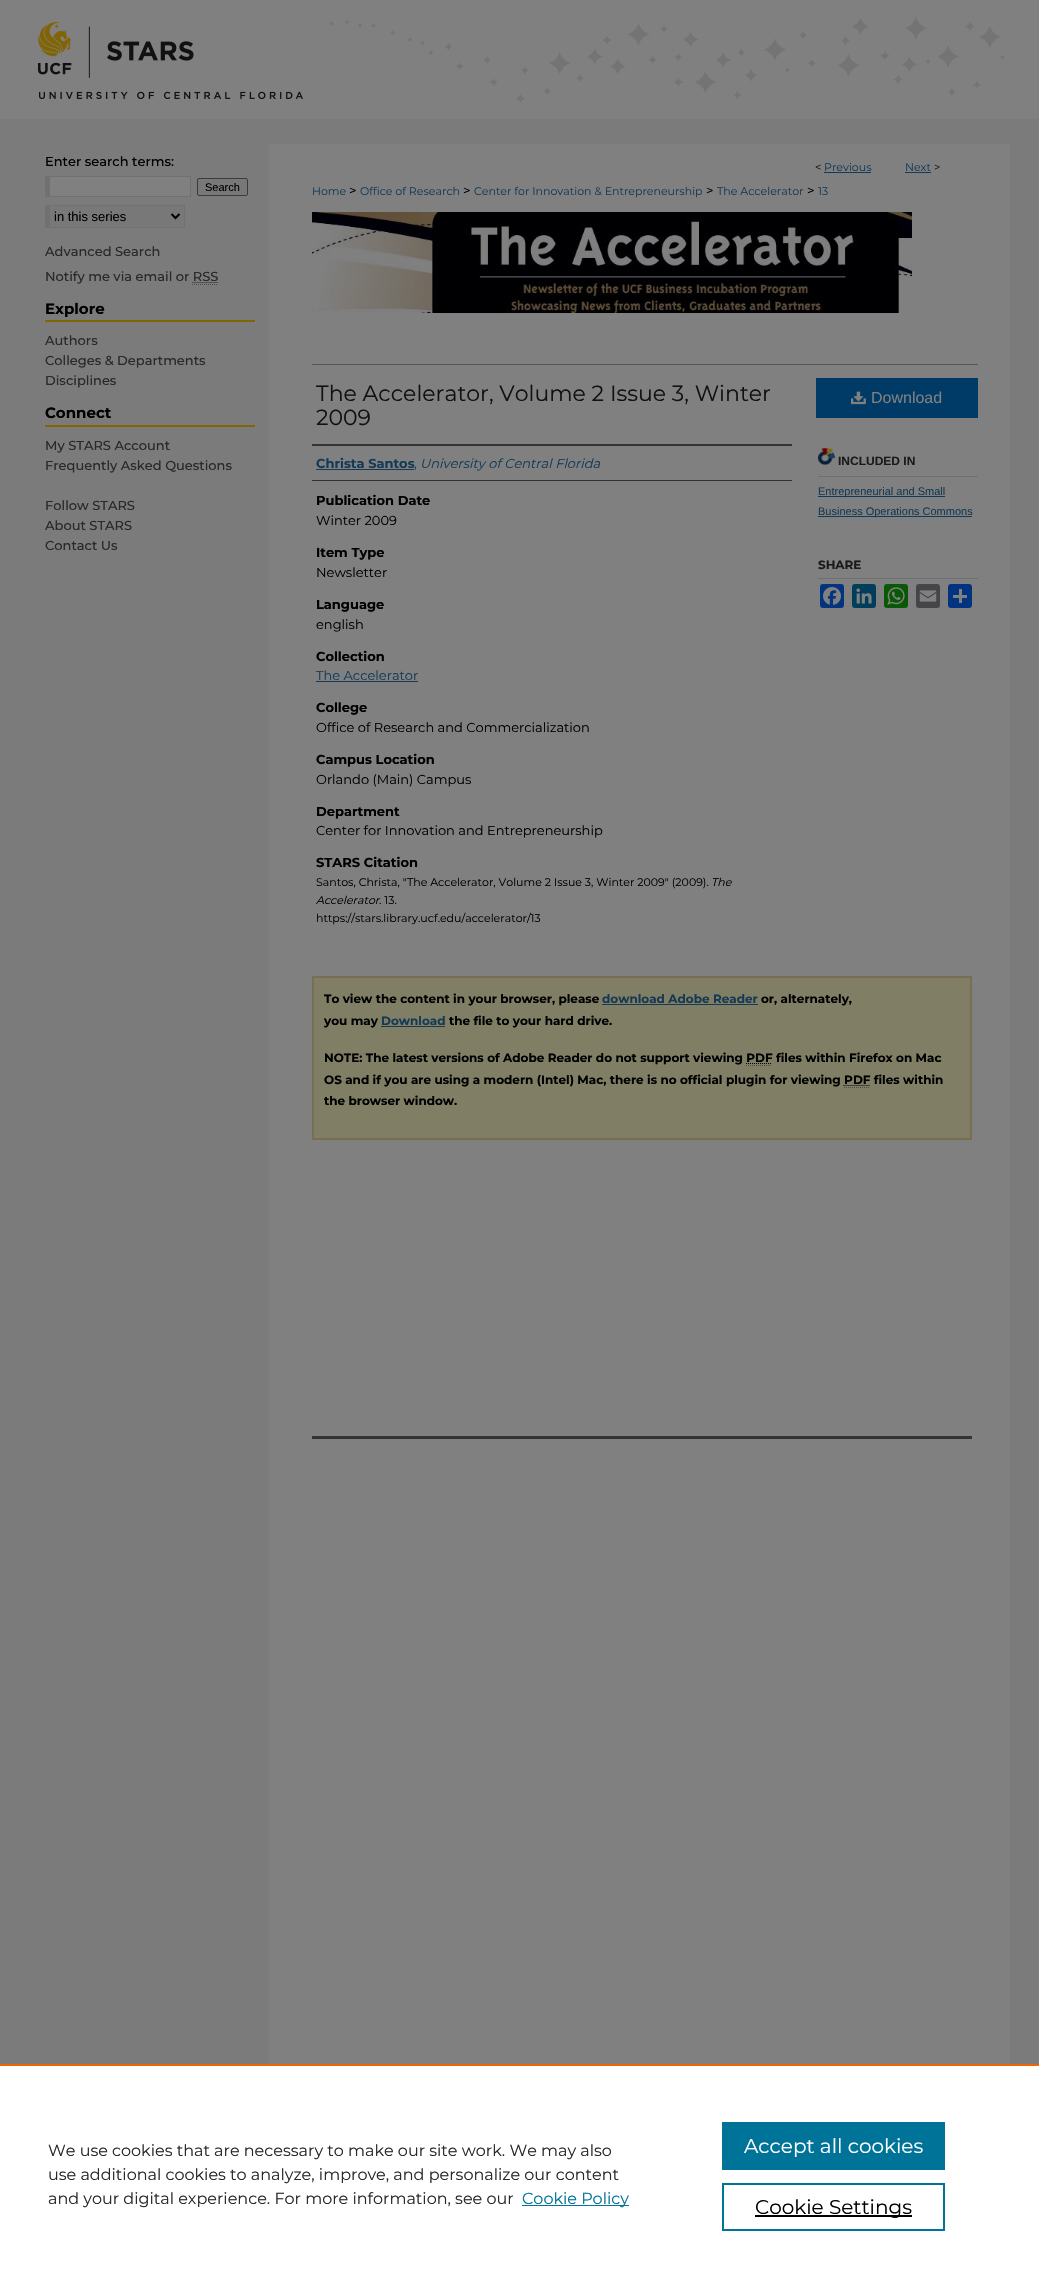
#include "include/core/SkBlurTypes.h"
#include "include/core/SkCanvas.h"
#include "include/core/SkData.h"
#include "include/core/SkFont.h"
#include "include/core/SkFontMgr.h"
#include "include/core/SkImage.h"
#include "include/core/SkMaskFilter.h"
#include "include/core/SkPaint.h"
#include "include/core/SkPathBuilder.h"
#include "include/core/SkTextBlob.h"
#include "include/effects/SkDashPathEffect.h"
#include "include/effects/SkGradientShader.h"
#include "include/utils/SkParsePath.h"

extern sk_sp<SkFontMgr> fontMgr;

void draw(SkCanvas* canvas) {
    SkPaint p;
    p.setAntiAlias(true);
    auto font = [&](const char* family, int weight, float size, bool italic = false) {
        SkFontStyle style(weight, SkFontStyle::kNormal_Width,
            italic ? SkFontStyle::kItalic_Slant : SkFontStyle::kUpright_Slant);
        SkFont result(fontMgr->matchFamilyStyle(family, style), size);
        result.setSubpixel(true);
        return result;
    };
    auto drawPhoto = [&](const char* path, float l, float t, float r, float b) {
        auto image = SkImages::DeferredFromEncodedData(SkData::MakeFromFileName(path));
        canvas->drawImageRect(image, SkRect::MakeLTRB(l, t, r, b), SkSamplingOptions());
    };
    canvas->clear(0xFF7B7B7B);
    p.setColor(0xFF808080);
    canvas->drawRect(SkRect::MakeLTRB(0, 0, 1039, 119), p);
    drawPhoto("media/1.png", 38, 17, 1005, 103);
    canvas->drawRect(SkRect::MakeLTRB(269, 144, 1010, 2064), p);
    auto font1 = font("Montserrat", 500, 13);
    p.setColor(0xFF000000);
    canvas->drawString("Enter search terms:", 45, 166, font1, p);
    {
        const struct { float l, t, r, b; SkColor color; } items[] = {
            {50, 177, 190, 196, 0xFF808080},
            {45, 176, 191, 177, 0xFF717171},
            {190, 176, 191, 197, 0xFF717171},
            {45, 196, 191, 197, 0xFF717171},
            {45, 176, 50, 197, 0xFF717171},
        };
        for (auto [l, t, r, b, color] : items) {
            p.setColor(color);
            canvas->drawRect(SkRect::MakeLTRB(l, t, r, b), p);
        }
    }
    p.setColor(0xFF787878);
    canvas->drawRoundRect(SkRect::MakeLTRB(197.5f, 178.5f, 247.5f, 195.5f), 1.5f, 1.5f, p);
    p.setStyle(SkPaint::kStroke_Style);
    p.setStrokeWidth(1);
    p.setColor(0xFF3B3B3B);
    canvas->drawRoundRect(SkRect::MakeLTRB(197.5f, 178.5f, 247.5f, 195.5f), 1.5f, 1.5f, p);
    auto font2 = font("Liberation Sans", 400, 11);
    p.setStyle(SkPaint::kFill_Style);
    p.setColor(0xFF000000);
    canvas->drawString("Search", 205, 191, font2, p);
    {
        const struct { float l, t, r, b; SkColor color; } items[] = {
            {50, 206, 184, 227, 0xFF787878},
            {45, 205, 185, 206, 0xFF717171},
            {184, 205, 185, 228, 0xFF717171},
            {45, 227, 185, 228, 0xFF717171},
            {45, 205, 50, 228, 0xFF717171},
        };
        for (auto [l, t, r, b, color] : items) {
            p.setColor(color);
            canvas->drawRect(SkRect::MakeLTRB(l, t, r, b), p);
        }
    }
    p.setStyle(SkPaint::kStroke_Style);
    p.setStrokeWidth(2);
    p.setColor(0xFF000000);
    canvas->drawPath(SkPathBuilder().moveTo(171.5f, 214).lineTo(175.5f, 218).lineTo(179.5f, 214).detach(), p);
    auto font3 = font("Liberation Sans", 400, 13);
    p.setStyle(SkPaint::kFill_Style);
    canvas->drawString("in this series", 54, 221, font3, p);
    p.setColor(0xFF292929);
    canvas->drawString("Advanced Search", 45, 256, font1, p);
    canvas->drawString("Notify me via email or RSS", 45, 281, font1, p);
    p.setStyle(SkPaint::kStroke_Style);
    p.setStrokeWidth(1);
    p.setPathEffect(SkDashPathEffect::Make({{1, 1}}, 0));
    canvas->drawPath(SkPathBuilder().moveTo(192.5f, 282.5f).lineTo(218, 282.5f).detach(), p);
    p.setPathEffect(nullptr);
    p.setColor(0xFF4D4D4D);
    p.setPathEffect(SkDashPathEffect::Make({{1, 1}}, 0));
    canvas->drawPath(SkPathBuilder().moveTo(192, 284.5f).lineTo(218, 284.5f).detach(), p);
    p.setPathEffect(nullptr);
    p.setStyle(SkPaint::kFill_Style);
    p.setColor(0xFF806505);
    canvas->drawRect(SkRect::MakeLTRB(45, 320, 255, 322), p);
    auto font4 = font("Montserrat", 700, 15);
    p.setColor(0xFF000000);
    canvas->drawString("Explore", 45, 314, font4, p);
    p.setColor(0xFF292929);
    {
        const struct { const char* s; float x, y; } items[] = {
            {"Authors", 45, 345},
            {"Colleges & Departments", 45, 365},
            {"Disciplines", 45, 385},
        };
        for (auto [s, x, y] : items) {
            canvas->drawString(s, x, y, font1, p);
        }
    }
    p.setColor(0xFF806505);
    canvas->drawRect(SkRect::MakeLTRB(45, 425, 255, 427), p);
    p.setColor(0xFF000000);
    canvas->drawString("Connect", 45, 418, font4, p);
    p.setColor(0xFF292929);
    {
        const struct { const char* s; float x, y; } items[] = {
            {"My STARS Account", 45, 450},
            {"Frequently Asked Questions", 45, 470},
            {"Follow STARS", 45, 510},
            {"About STARS", 45, 530},
            {"Contact Us", 45, 550},
        };
        for (auto [s, x, y] : items) {
            canvas->drawString(s, x, y, font1, p);
        }
    }
    auto font5 = font("Montserrat", 400, 11);
    p.setColor(0xFF111111);
    canvas->drawString("<", 815, 171, font5, p);
    p.setColor(0xFF153A55);
    canvas->drawString("Previous", 824, 171, font5, p);
    canvas->drawRect(SkRect::MakeLTRB(824, 172, 871, 173), p);
    canvas->drawString("Next", 905, 171, font5, p);
    canvas->drawRect(SkRect::MakeLTRB(905, 172, 931, 173), p);
    p.setColor(0xFF111111);
    canvas->drawString(">", 934, 171, font5, p);
    p.setColor(0xFF153A55);
    canvas->drawString("Home", 312, 195, font5, p);
    auto font6 = font("Montserrat", 400, 13);
    p.setColor(0xFF000000);
    canvas->drawString(">", 349, 195, font6, p);
    p.setColor(0xFF153A55);
    canvas->drawString("Office of Research", 360, 195, font5, p);
    p.setColor(0xFF000000);
    canvas->drawString(">", 463, 195, font6, p);
    p.setColor(0xFF153A55);
    canvas->drawString("Center for Innovation & Entrepreneurship", 474, 195, font5, p);
    p.setColor(0xFF000000);
    canvas->drawString(">", 706, 195, font6, p);
    p.setColor(0xFF153A55);
    canvas->drawString("The Accelerator", 717, 195, font5, p);
    p.setColor(0xFF000000);
    canvas->drawString(">", 807, 195, font6, p);
    p.setColor(0xFF153A55);
    canvas->drawString("13", 818, 195, font5, p);
    drawPhoto("media/2.png", 312, 212, 912, 313);
    p.setColor(0xFF555555);
    canvas->drawRect(SkRect::MakeLTRB(312, 364, 978, 365), p);
    auto font7 = font("Montserrat", 400, 22);
    p.setColor(0xFF111111);
    canvas->drawString("The Accelerator, Volume 2 Issue 3, Winter", 316, 401, font7, p);
    canvas->drawString("2009", 316, 425, font7, p);
    p.setColor(0xFF333333);
    canvas->drawRect(SkRect::MakeLTRB(312, 444, 792, 446), p);
    canvas->drawRect(SkRect::MakeLTRB(312, 480, 792, 481), p);
    auto font8 = font("Montserrat", 700, 13);
    p.setColor(0xFF153A55);
    canvas->drawString("Christa Santos", 316, 468, font8, p);
    canvas->drawRect(SkRect::MakeLTRB(316, 469, 414, 470), p);
    canvas->drawString(",", 414, 468, font6, p);
    auto font9 = font("Montserrat", 400, 13, true);
    canvas->drawString("University of Central Florida", 420, 468, font9, p);
    p.setColor(0xFF000000);
    canvas->drawString("Publication Date", 316, 505, font8, p);
    canvas->drawString("Winter 2009", 316, 525, font6, p);
    canvas->drawString("Item Type", 316, 557, font8, p);
    canvas->drawString("Newsletter", 316, 577, font6, p);
    canvas->drawString("Language", 316, 609, font8, p);
    canvas->drawString("english", 316, 629, font6, p);
    canvas->drawString("Collection", 316, 661, font8, p);
    p.setColor(0xFF153A55);
    canvas->drawString("The Accelerator", 316, 680, font6, p);
    canvas->drawRect(SkRect::MakeLTRB(316, 681, 418, 682), p);
    p.setColor(0xFF000000);
    canvas->drawString("College", 316, 712, font8, p);
    canvas->drawString("Office of Research and Commercialization", 316, 732, font6, p);
    canvas->drawString("Campus Location", 316, 764, font8, p);
    canvas->drawString("Orlando (Main) Campus", 316, 784, font6, p);
    canvas->drawString("Department", 316, 816, font8, p);
    canvas->drawString("Center for Innovation and Entrepreneurship", 316, 835, font6, p);
    canvas->drawString("STARS Citation", 316, 867, font8, p);
    canvas->drawString("Santos, Christa, \"The Accelerator, Volume 2 Issue 3, Winter 2009\" (2009).", 316, 886, font5, p);
    auto font10 = font("Montserrat", 400, 11, true);
    canvas->drawString("The", 711, 886, font10, p);
    canvas->drawString("Accelerator", 316, 904, font10, p);
    canvas->drawString(". 13.", 379, 904, font5, p);
    canvas->drawString("https://stars.library.ucf.edu/accelerator/13", 316, 922, font5, p);
    p.setColor(0xFF003A66);
    canvas->drawRect(SkRect::MakeLTRB(816, 378, 978, 418), p);
    drawPhoto("media/3.png", 851, 391, 866, 405);
    auto font11 = font("Liberation Sans", 400, 16);
    p.setColor(0xFF808080);
    canvas->drawString("Download", 871, 403, font11, p);
    drawPhoto("media/4.png", 818, 448, 835, 465);
    p.setColor(0xFF6F6F6F);
    canvas->drawRect(SkRect::MakeLTRB(818, 476, 978, 477), p);
    auto font12 = font("Liberation Sans", 700, 12);
    p.setColor(0xFF1A1A1A);
    canvas->drawString("INCLUDED IN", 838, 465, font12, p);
    p.setColor(0xFF153A55);
    canvas->drawRect(SkRect::MakeLTRB(818, 496, 945, 497), p);
    canvas->drawString("Entrepreneurial and Small", 818, 495, font2, p);
    canvas->drawRect(SkRect::MakeLTRB(818, 516, 972, 517), p);
    canvas->drawString("Business Operations Commons", 818, 515, font2, p);
    p.setColor(0xFF6F6F6F);
    canvas->drawRect(SkRect::MakeLTRB(818, 578, 978, 579), p);
    auto font13 = font("Montserrat", 700, 12);
    p.setColor(0xFF1A1A1A);
    canvas->drawString("SHARE", 818, 569, font13, p);
    p.setColor(0xFF043380);
    canvas->drawRoundRect(SkRect::MakeLTRB(820, 584, 844, 608), 3, 3, p);
    drawPhoto("media/5.png", 823, 587, 841, 605);
    p.setColor(0xFF003E5B);
    canvas->drawRoundRect(SkRect::MakeLTRB(852, 584, 876, 608), 3, 3, p);
    drawPhoto("media/6.png", 856, 588, 872, 604);
    p.setColor(0xFF095805);
    canvas->drawRoundRect(SkRect::MakeLTRB(884, 584, 908, 608), 3, 3, p);
    drawPhoto("media/7.png", 887, 587, 905, 605);
    p.setColor(0xFF444548);
    canvas->drawRoundRect(SkRect::MakeLTRB(916, 584, 940, 608), 3, 3, p);
    drawPhoto("media/8.png", 919, 590, 937, 602);
    p.setColor(0xFF013380);
    canvas->drawRoundRect(SkRect::MakeLTRB(948, 584, 972, 608), 3, 3, p);
    {
        const struct { float l, t, r, b; SkColor color; } items[] = {
            {959, 589, 962, 603, 0xFF808080},
            {953, 595, 967, 598, 0xFF808080},
            {312, 1436, 972, 1439, 0xFF333333},
        };
        for (auto [l, t, r, b, color] : items) {
            p.setColor(color);
            canvas->drawRect(SkRect::MakeLTRB(l, t, r, b), p);
        }
    }
    p.setColor(0xFF807E65);
    canvas->drawRect(SkRect::MakeLTRB(313, 977, 971, 1139), p);
    p.setStyle(SkPaint::kStroke_Style);
    p.setStrokeWidth(2);
    p.setColor(0xFF786E51);
    canvas->drawRect(SkRect::MakeLTRB(313, 977, 971, 1139), p);
    p.setStyle(SkPaint::kFill_Style);
    p.setColor(0xFF000000);
    canvas->drawString("To view the content in your browser, please", 324, 1003, font13, p);
    p.setColor(0xFF153A55);
    canvas->drawString("download Adobe Reader", 602, 1003, font13, p);
    canvas->drawRect(SkRect::MakeLTRB(602, 1004, 758, 1005), p);
    p.setColor(0xFF000000);
    canvas->drawString("or, alternately,", 761, 1003, font13, p);
    canvas->drawString("you may", 324, 1025, font13, p);
    p.setColor(0xFF153A55);
    canvas->drawString("Download", 381, 1025, font13, p);
    canvas->drawRect(SkRect::MakeLTRB(381, 1026, 445, 1027), p);
    p.setColor(0xFF000000);
    canvas->drawString("the file to your hard drive.", 449, 1025, font13, p);
    canvas->drawString("NOTE: The latest versions of Adobe Reader do not support viewing PDF files within Firefox on Mac", 324, 1062, font13, p);
    p.setStyle(SkPaint::kStroke_Style);
    p.setStrokeWidth(1);
    p.setPathEffect(SkDashPathEffect::Make({{1, 1}}, 0));
    canvas->drawPath(SkPathBuilder().moveTo(746, 1063.5f).lineTo(772, 1063.5f).detach(), p);
    p.setPathEffect(nullptr);
    p.setColor(0xFF4D4D4D);
    p.setPathEffect(SkDashPathEffect::Make({{1, 1}}, 0));
    canvas->drawPath(SkPathBuilder().moveTo(746, 1065.5f).lineTo(772, 1065.5f).detach(), p);
    p.setPathEffect(nullptr);
    p.setStyle(SkPaint::kFill_Style);
    p.setColor(0xFF000000);
    canvas->drawString("OS and if you are using a modern (Intel) Mac, there is no official plugin for viewing PDF files within", 324, 1084, font13, p);
    p.setStyle(SkPaint::kStroke_Style);
    p.setPathEffect(SkDashPathEffect::Make({{1, 1}}, 0));
    canvas->drawPath(SkPathBuilder().moveTo(843.5f, 1085.5f).lineTo(870, 1085.5f).detach(), p);
    p.setPathEffect(nullptr);
    p.setColor(0xFF4D4D4D);
    p.setPathEffect(SkDashPathEffect::Make({{1, 1}}, 0));
    canvas->drawPath(SkPathBuilder().moveTo(844, 1087.5f).lineTo(870, 1087.5f).detach(), p);
    p.setPathEffect(nullptr);
    p.setStyle(SkPaint::kFill_Style);
    p.setColor(0xFF000000);
    canvas->drawString("the browser window.", 324, 1105, font13, p);
    p.setColor(0xFFFFFFFF);
    canvas->drawRect(SkRect::MakeLTRB(0, 2066, 1039, 2284), p);
    p.setColor(0xFFEB6500);
    canvas->drawRect(SkRect::MakeLTRB(0, 2064, 1039, 2066), p);
    auto font14 = font("Montserrat", 400, 16);
    p.setColor(0xFF292929);
    {
        const struct { const char* s; float x, y; } items[] = {
            {"We use cookies that are necessary to make our site work. We may also", 48, 2156},
            {"use additional cookies to analyze, improve, and personalize our content", 48, 2180},
            {"and your digital experience. For more information, see our", 48, 2204},
        };
        for (auto [s, x, y] : items) {
            canvas->drawString(s, x, y, font14, p);
        }
    }
    p.setColor(0xFF007398);
    canvas->drawRect(SkRect::MakeLTRB(522, 2205, 629, 2206), p);
    canvas->drawString("Cookie Policy", 522, 2204, font14, p);
    canvas->drawRect(SkRect::MakeLTRB(722, 2122, 945, 2170), p);
    auto font15 = font("Montserrat", 400, 20);
    p.setColor(0xFFFFFFFF);
    canvas->drawString("Accept all cookies", 744, 2153, font15, p);
    p.setStyle(SkPaint::kStroke_Style);
    p.setStrokeWidth(2);
    p.setColor(0xFF007398);
    canvas->drawRect(SkRect::MakeLTRB(723, 2184, 944, 2230), p);
    p.setStyle(SkPaint::kFill_Style);
    p.setColor(0xFF000000);
    canvas->drawRect(SkRect::MakeLTRB(755, 2215, 912, 2217), p);
    canvas->drawString("Cookie Settings", 755, 2214, font15, p);
}
